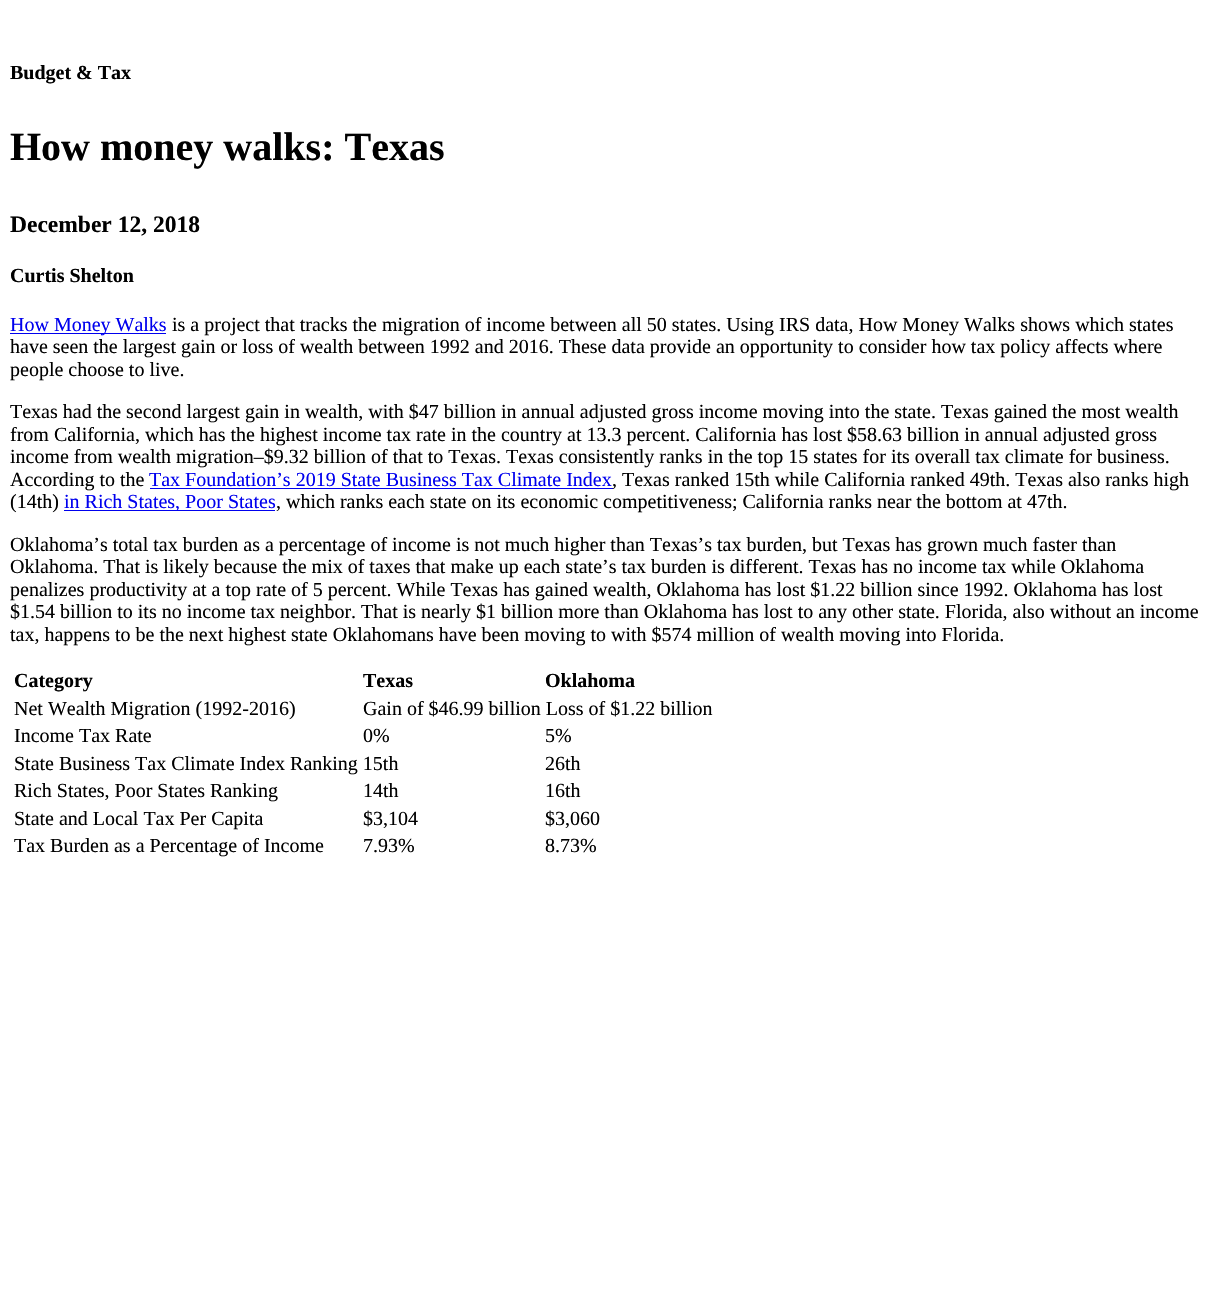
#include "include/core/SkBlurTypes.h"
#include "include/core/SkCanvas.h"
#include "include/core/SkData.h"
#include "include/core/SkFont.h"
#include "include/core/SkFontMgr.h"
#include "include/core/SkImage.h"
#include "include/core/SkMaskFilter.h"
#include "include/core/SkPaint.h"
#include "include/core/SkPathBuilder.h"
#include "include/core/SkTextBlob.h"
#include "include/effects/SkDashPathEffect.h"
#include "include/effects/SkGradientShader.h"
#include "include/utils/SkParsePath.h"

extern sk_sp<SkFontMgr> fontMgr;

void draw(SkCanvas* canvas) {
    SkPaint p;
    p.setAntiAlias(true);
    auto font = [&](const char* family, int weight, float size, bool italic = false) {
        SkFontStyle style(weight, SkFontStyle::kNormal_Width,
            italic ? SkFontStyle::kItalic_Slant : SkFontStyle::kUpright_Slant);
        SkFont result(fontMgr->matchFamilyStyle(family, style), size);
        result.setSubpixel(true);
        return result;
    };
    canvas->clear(0xFFFFFFFF);
    auto font1 = font("Liberation Serif", 700, 20);
    p.setColor(0xFF000000);
    canvas->drawString("Budget & Tax", 10, 79, font1, p);
    auto font2 = font("Liberation Serif", 700, 40);
    canvas->drawString("How money walks: Texas", 10, 160, font2, p);
    auto font3 = font("Liberation Serif", 700, 23.5f);
    canvas->drawString("December 12, 2018", 10, 232, font3, p);
    canvas->drawString("Curtis Shelton", 10, 282, font1, p);
    p.setColor(0xFF0000EE);
    canvas->drawRect(SkRect::MakeLTRB(10, 333, 166, 334), p);
    auto font4 = font("Liberation Serif", 400, 20);
    canvas->drawString("How Money Walks", 10, 331, font4, p);
    p.setColor(0xFF000000);
    {
        const struct { const char* s; float x, y; } items[] = {
            {"is a project that tracks the migration of income between all 50 states. Using IRS data, How Money Walks shows which states", 172, 331},
            {"have seen the largest gain or loss of wealth between 1992 and 2016. These data provide an opportunity to consider how tax policy affects where", 10, 353},
            {"people choose to live.", 10, 376},
            {"Texas had the second largest gain in wealth, with $47 billion in annual adjusted gross income moving into the state. Texas gained the most wealth", 10, 418},
            {"from California, which has the highest income tax rate in the country at 13.3 percent. California has lost $58.63 billion in annual adjusted gross", 10, 441},
            {"income from wealth migration–$9.32 billion of that to Texas. Texas consistently ranks in the top 15 states for its overall tax climate for business.", 10, 463},
            {"According to the", 10, 486},
        };
        for (auto [s, x, y] : items) {
            canvas->drawString(s, x, y, font4, p);
        }
    }
    p.setColor(0xFF0000EE);
    canvas->drawString("Tax Foundation’s 2019 State Business Tax Climate Index", 149, 486, font4, p);
    canvas->drawRect(SkRect::MakeLTRB(150, 488, 613, 489), p);
    p.setColor(0xFF000000);
    canvas->drawString(", Texas ranked 15th while California ranked 49th. Texas also ranks high", 612, 486, font4, p);
    canvas->drawString("(14th)", 10, 508, font4, p);
    p.setColor(0xFF0000EE);
    canvas->drawRect(SkRect::MakeLTRB(64, 510, 275, 511), p);
    canvas->drawString("in Rich States, Poor States", 64, 508, font4, p);
    p.setColor(0xFF000000);
    {
        const struct { const char* s; float x, y; } items[] = {
            {", which ranks each state on its economic competitiveness; California ranks near the bottom at 47th.", 276, 508},
            {"Oklahoma’s total tax burden as a percentage of income is not much higher than Texas’s tax burden, but Texas has grown much faster than", 10, 551},
            {"Oklahoma. That is likely because the mix of taxes that make up each state’s tax burden is different. Texas has no income tax while Oklahoma", 10, 573},
            {"penalizes productivity at a top rate of 5 percent. While Texas has gained wealth, Oklahoma has lost $1.22 billion since 1992. Oklahoma has lost", 10, 596},
            {"$1.54 billion to its no income tax neighbor. That is nearly $1 billion more than Oklahoma has lost to any other state. Florida, also without an income", 10, 618},
            {"tax, happens to be the next highest state Oklahomans have been moving to with $574 million of wealth moving into Florida.", 10, 641},
        };
        for (auto [s, x, y] : items) {
            canvas->drawString(s, x, y, font4, p);
        }
    }
    {
        const struct { const char* s; float x, y; } items[] = {
            {"Category", 14, 687},
            {"Texas", 363, 687},
            {"Oklahoma", 545, 687},
        };
        for (auto [s, x, y] : items) {
            canvas->drawString(s, x, y, font1, p);
        }
    }
    {
        const struct { const char* s; float x, y; } items[] = {
            {"Net Wealth Migration (1992-2016)", 14, 715},
            {"Gain of $46.99 billion Loss of $1.22 billion", 363, 715},
            {"Income Tax Rate", 14, 742},
            {"0%", 363, 742},
            {"5%", 545, 742},
            {"State Business Tax Climate Index Ranking 15th", 14, 770},
            {"26th", 545, 770},
            {"Rich States, Poor States Ranking", 14, 797},
            {"14th", 363, 797},
            {"16th", 545, 797},
            {"State and Local Tax Per Capita", 14, 825},
            {"$3,104", 363, 825},
            {"$3,060", 545, 825},
            {"Tax Burden as a Percentage of Income", 14, 852},
            {"7.93%", 363, 852},
            {"8.73%", 545, 852},
        };
        for (auto [s, x, y] : items) {
            canvas->drawString(s, x, y, font4, p);
        }
    }
}
